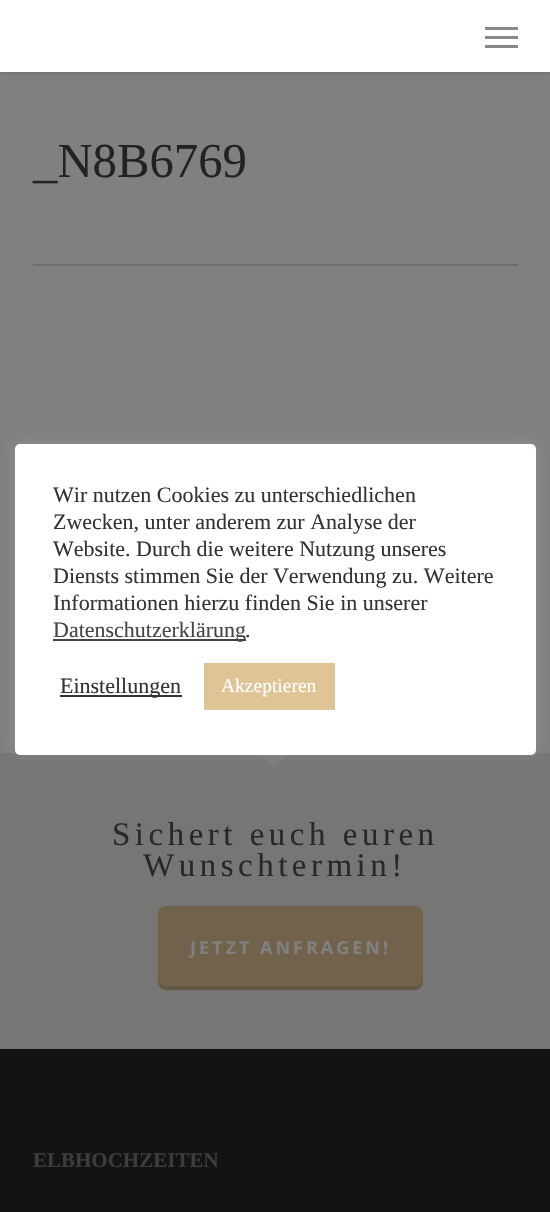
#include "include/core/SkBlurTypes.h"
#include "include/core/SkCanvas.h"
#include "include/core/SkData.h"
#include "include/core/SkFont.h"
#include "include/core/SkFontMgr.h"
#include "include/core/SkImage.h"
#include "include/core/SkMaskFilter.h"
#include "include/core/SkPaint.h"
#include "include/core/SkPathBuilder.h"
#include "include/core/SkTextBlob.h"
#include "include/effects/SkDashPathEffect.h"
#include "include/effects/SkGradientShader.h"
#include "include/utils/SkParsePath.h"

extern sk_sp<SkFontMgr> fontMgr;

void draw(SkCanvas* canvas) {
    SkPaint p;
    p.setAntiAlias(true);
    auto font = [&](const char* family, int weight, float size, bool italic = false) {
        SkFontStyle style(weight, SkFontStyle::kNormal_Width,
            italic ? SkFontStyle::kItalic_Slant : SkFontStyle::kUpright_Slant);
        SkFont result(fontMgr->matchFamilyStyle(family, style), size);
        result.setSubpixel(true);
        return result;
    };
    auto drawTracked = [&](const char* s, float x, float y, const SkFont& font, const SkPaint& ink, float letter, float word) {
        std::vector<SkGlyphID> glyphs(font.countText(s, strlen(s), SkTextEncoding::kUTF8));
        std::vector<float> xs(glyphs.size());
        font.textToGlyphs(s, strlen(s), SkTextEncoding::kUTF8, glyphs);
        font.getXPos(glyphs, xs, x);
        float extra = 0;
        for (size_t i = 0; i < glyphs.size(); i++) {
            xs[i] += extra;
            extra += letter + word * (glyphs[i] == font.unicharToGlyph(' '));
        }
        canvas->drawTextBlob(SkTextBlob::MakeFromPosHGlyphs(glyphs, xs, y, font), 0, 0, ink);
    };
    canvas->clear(0xFF808080);
    p.setColor(0x38000000);
    p.setMaskFilter(SkMaskFilter::MakeBlur(kNormal_SkBlurStyle, 2));
    canvas->drawRect(SkRect::MakeLTRB(0, 0, 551, 72), p);
    p.setMaskFilter(nullptr);
    {
        const struct { float l, t, r, b; SkColor color; } items[] = {
            {0, 0, 550, 72, 0xFFFFFFFF},
            {485, 27, 518, 30, 0xFF888888},
            {485, 45, 518, 48, 0xFF888888},
            {485, 36, 518, 39, 0xFF888888},
            {33, 264, 518, 266, 0xFF6F6F6F},
        };
        for (auto [l, t, r, b, color] : items) {
            p.setColor(color);
            canvas->drawRect(SkRect::MakeLTRB(l, t, r, b), p);
        }
    }
    auto font1 = font("Liberation Serif", 400, 48.75f);
    p.setColor(0xFF222222);
    canvas->drawString("_N8B6769", 33, 177, font1, p);
    p.setColor(0xFF131313);
    canvas->drawRect(SkRect::MakeLTRB(0, 1049, 550, 1212), p);
    p.setColor(0xFF767675);
    canvas->drawRect(SkRect::MakeLTRB(0, 753, 550, 1049), p);
    p.setColor(0xFF7C7C7C);
    canvas->drawPath(SkPathBuilder().moveTo(259.5f, 753).lineTo(289.5f, 753).lineTo(274.5f, 768).close().detach(), p);
    auto font2 = font("Liberation Serif", 400, 33);
    p.setColor(0xFF262829);
    drawTracked("Sichert euch euren", 112, 845, font2, p, 4.5f, 0);
    drawTracked("Wunschtermin!", 143, 876, font2, p, 4.5f, 0);
    p.setColor(0xFF70624B);
    canvas->drawRoundRect(SkRect::MakeLTRB(158, 906, 423, 990), 8, 8, p);
    p.setColor(0x1A000000);
    canvas->drawPath(SkPathBuilder().moveTo(158, 978).lineTo(158, 982).cubicTo(158, 986, 162, 990, 166, 990).lineTo(415, 990).cubicTo(419, 990, 423, 986, 423, 982).lineTo(423, 978).cubicTo(423, 982, 420, 986, 416, 986).lineTo(165, 986).cubicTo(161, 986, 158, 982, 158, 978).close().detach(), p);
    auto font3 = font("Open Sans", 700, 18);
    p.setColor(0xFF808080);
    drawTracked("JETZT ANFRAGEN!", 190, 954, font3, p, 3, 0);
    auto font4 = font("Liberation Serif", 700, 21);
    p.setColor(0xFF3C3C3C);
    canvas->drawString("ELBHOCHZEITEN", 33, 1167, font4, p);
    p.setColor(0x4DACABAB);
    p.setMaskFilter(SkMaskFilter::MakeBlur(kNormal_SkBlurStyle, 7.5f));
    canvas->drawRoundRect(SkRect::MakeLTRB(15, 443, 536, 753), 5, 5, p);
    p.setMaskFilter(nullptr);
    p.setColor(0xFFFFFFFF);
    canvas->drawRoundRect(SkRect::MakeLTRB(15, 444, 536, 755), 5, 5, p);
    auto font5 = font("Liberation Serif", 400, 22);
    p.setColor(0xFF333333);
    {
        const struct { const char* s; float x, y; } items[] = {
            {"Wir nutzen Cookies zu unterschiedlichen", 53, 502},
            {"Zwecken, unter anderem zur Analyse der", 53, 529},
            {"Website. Durch die weitere Nutzung unseres", 53, 556},
            {"Diensts stimmen Sie der Verwendung zu. Weitere", 53, 583},
            {"Informationen hierzu finden Sie in unserer", 53, 610},
        };
        for (auto [s, x, y] : items) {
            canvas->drawString(s, x, y, font5, p);
        }
    }
    p.setColor(0xFF444444);
    canvas->drawRect(SkRect::MakeLTRB(53, 639, 246, 641), p);
    canvas->drawString("Datenschutzerklärung", 53, 637, font5, p);
    p.setColor(0xFF333333);
    canvas->drawString(".", 245, 637, font5, p);
    canvas->drawRect(SkRect::MakeLTRB(60, 695, 182, 697), p);
    canvas->drawString("Einstellungen", 60, 693, font5, p);
    p.setColor(0xFFDFC496);
    canvas->drawRect(SkRect::MakeLTRB(204, 663, 335, 710), p);
    auto font6 = font("Liberation Serif", 400, 19.5f);
    p.setColor(0xFFFFFFFF);
    canvas->drawString("Akzeptieren", 221, 692, font6, p);
}
